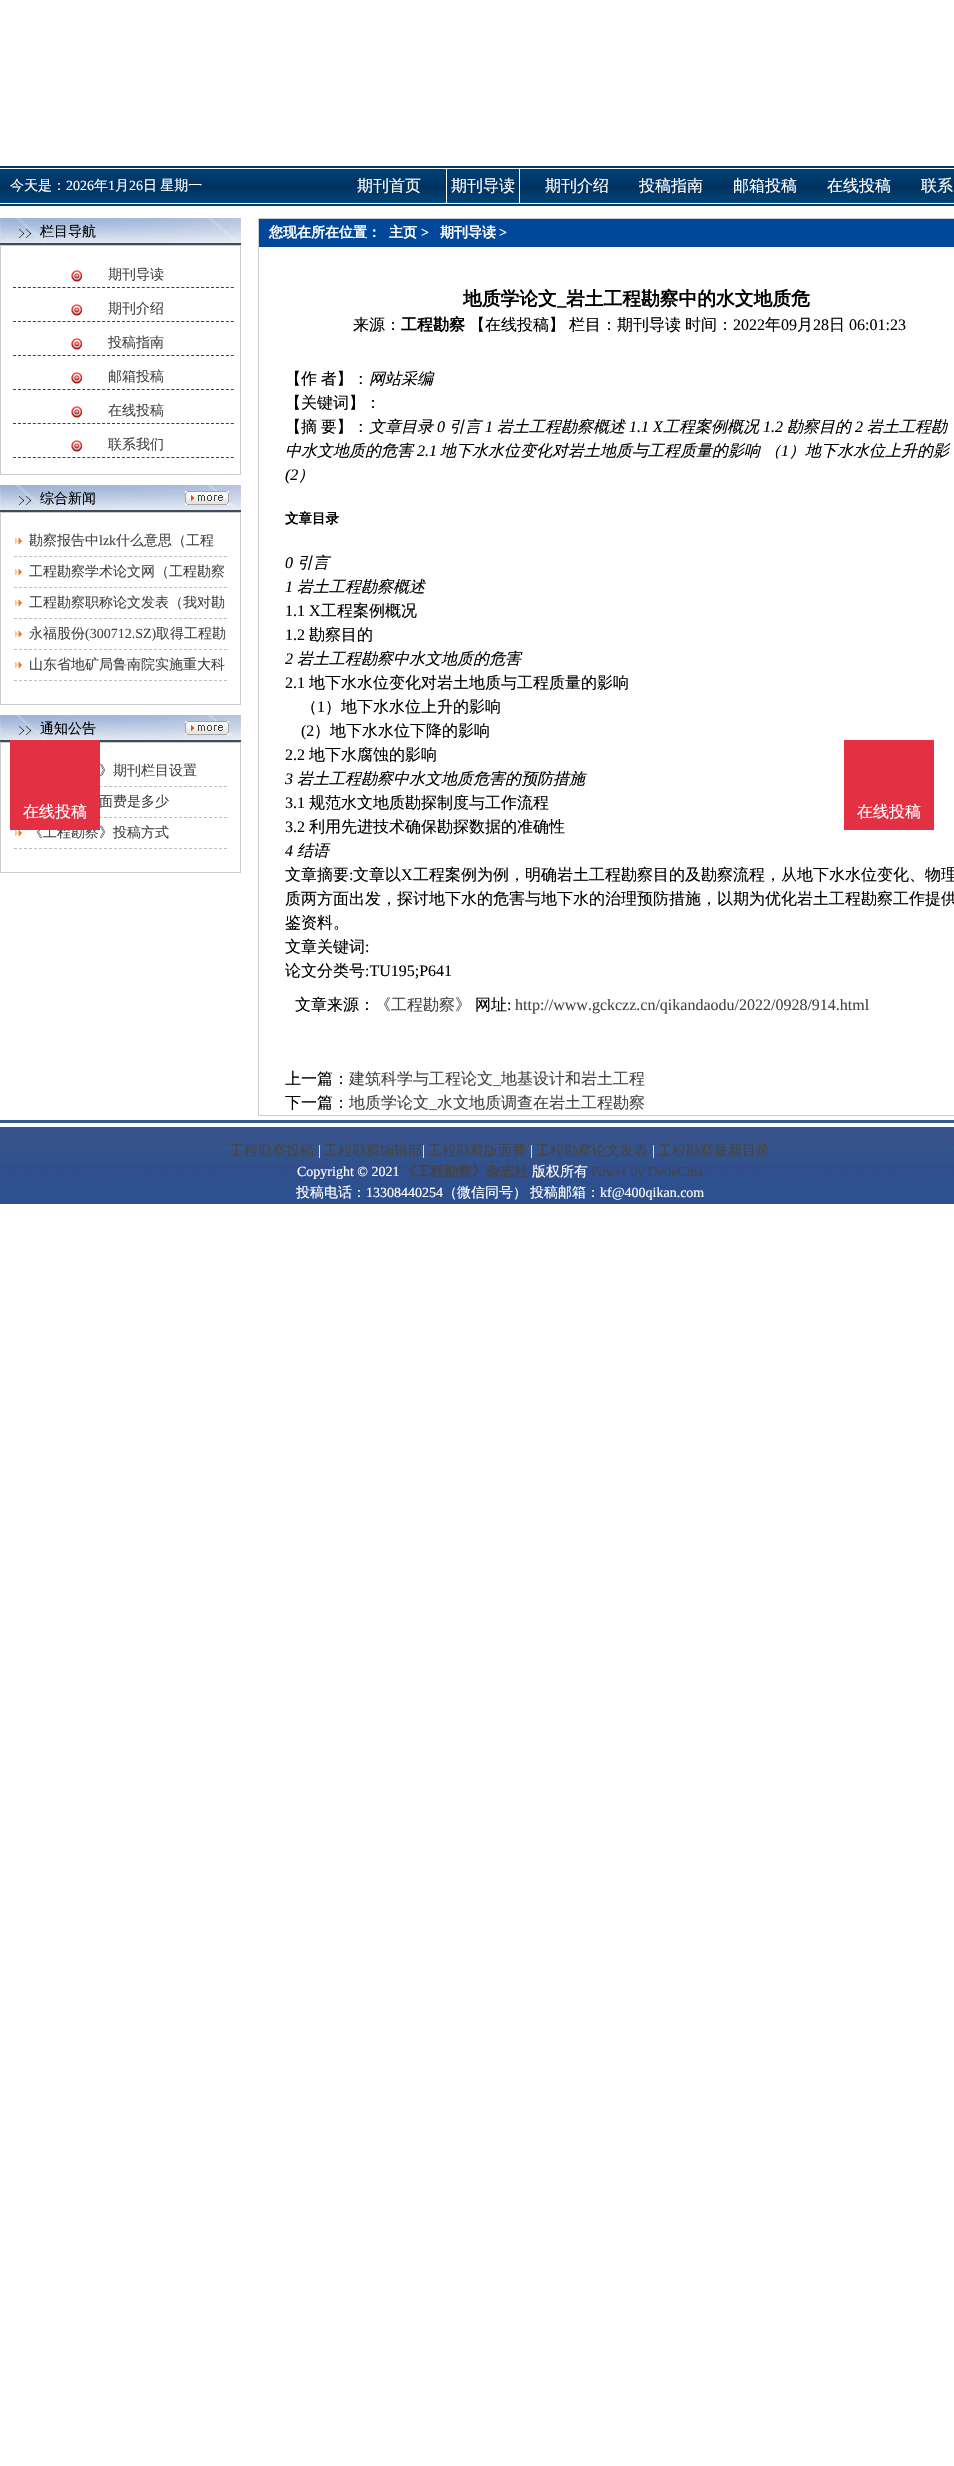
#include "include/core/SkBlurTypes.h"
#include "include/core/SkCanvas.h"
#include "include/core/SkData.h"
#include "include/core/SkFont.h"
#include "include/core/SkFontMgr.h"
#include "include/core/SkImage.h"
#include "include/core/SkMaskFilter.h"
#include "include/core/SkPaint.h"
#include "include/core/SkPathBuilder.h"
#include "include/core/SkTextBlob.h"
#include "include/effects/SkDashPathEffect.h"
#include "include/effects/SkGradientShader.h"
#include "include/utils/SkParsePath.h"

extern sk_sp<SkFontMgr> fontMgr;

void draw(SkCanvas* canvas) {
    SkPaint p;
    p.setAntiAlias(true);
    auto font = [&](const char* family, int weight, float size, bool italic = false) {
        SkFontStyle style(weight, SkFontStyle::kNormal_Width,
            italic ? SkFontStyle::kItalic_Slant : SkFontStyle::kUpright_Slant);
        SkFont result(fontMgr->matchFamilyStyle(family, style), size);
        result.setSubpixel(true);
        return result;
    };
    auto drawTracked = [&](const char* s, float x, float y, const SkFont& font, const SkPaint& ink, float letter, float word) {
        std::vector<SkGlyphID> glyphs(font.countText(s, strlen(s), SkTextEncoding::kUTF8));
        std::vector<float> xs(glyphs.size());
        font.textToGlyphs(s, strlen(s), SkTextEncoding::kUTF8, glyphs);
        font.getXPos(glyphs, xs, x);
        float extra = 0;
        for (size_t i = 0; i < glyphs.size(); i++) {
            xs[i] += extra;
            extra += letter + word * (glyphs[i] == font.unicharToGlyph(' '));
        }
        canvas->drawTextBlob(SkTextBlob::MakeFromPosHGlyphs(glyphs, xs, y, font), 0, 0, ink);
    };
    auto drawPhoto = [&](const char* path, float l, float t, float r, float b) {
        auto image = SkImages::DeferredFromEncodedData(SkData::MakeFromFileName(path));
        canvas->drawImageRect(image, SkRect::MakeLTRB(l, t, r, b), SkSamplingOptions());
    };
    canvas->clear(0xFFFFFFFF);
    drawPhoto("media/1.png", 0, 166, 954, 206);
    auto font1 = font("WenQuanYi Zen Hei", 500, 14);
    p.setColor(0xFFFFFFFF);
    canvas->drawString("今天是：", 10, 190, font1, p);
    auto font2 = font("Liberation Serif", 400, 14);
    canvas->drawString("2026", 66, 190, font2, p);
    canvas->drawString("年", 94, 190, font1, p);
    canvas->drawString("1", 108, 190, font2, p);
    canvas->drawString("月", 115, 190, font1, p);
    canvas->drawString("26", 129, 190, font2, p);
    drawTracked("日 星期一", 143, 190, font1, p, 0, -1);
    auto font3 = font("WenQuanYi Zen Hei", 500, 16);
    canvas->drawString("期刊首页", 357, 191, font3, p);
    drawPhoto("media/2.png", 446, 169, 520, 203);
    {
        const struct { const char* s; float x, y; } items[] = {
            {"期刊导读", 451, 191},
            {"期刊介绍", 545, 191},
            {"投稿指南", 639, 191},
            {"邮箱投稿", 733, 191},
            {"在线投稿", 827, 191},
            {"联系", 921, 191},
        };
        for (auto [s, x, y] : items) {
            canvas->drawString(s, x, y, font3, p);
        }
    }
    drawPhoto("media/3.png", 0, 218, 241, 245);
    p.setColor(0xFF000000);
    canvas->drawString("栏目导航", 40, 236, font1, p);
    p.setStyle(SkPaint::kStroke_Style);
    p.setStrokeWidth(1);
    p.setColor(0xFFCCCCCC);
    canvas->drawRect(SkRect::MakeLTRB(0.5f, 245.5f, 240.5f, 474.5f), p);
    drawPhoto("media/4.png", 71, 270, 82, 282);
    p.setColor(0xFF7C2A09);
    p.setPathEffect(SkDashPathEffect::Make({{3, 1.95f}}, 0));
    canvas->drawPath(SkPathBuilder().moveTo(13, 287.5f).lineTo(234, 287.5f).detach(), p);
    p.setPathEffect(nullptr);
    p.setStyle(SkPaint::kFill_Style);
    p.setColor(0xFF444444);
    canvas->drawString("期刊导读", 108, 279, font1, p);
    drawPhoto("media/4.png", 71, 304, 82, 316);
    p.setStyle(SkPaint::kStroke_Style);
    p.setColor(0xFF7C2A09);
    p.setPathEffect(SkDashPathEffect::Make({{3, 1.95f}}, 0));
    canvas->drawPath(SkPathBuilder().moveTo(13, 321.5f).lineTo(234, 321.5f).detach(), p);
    p.setPathEffect(nullptr);
    p.setStyle(SkPaint::kFill_Style);
    p.setColor(0xFF444444);
    canvas->drawString("期刊介绍", 108, 313, font1, p);
    drawPhoto("media/4.png", 71, 338, 82, 350);
    p.setStyle(SkPaint::kStroke_Style);
    p.setColor(0xFF7C2A09);
    p.setPathEffect(SkDashPathEffect::Make({{3, 1.95f}}, 0));
    canvas->drawPath(SkPathBuilder().moveTo(13, 355.5f).lineTo(234, 355.5f).detach(), p);
    p.setPathEffect(nullptr);
    p.setStyle(SkPaint::kFill_Style);
    p.setColor(0xFF444444);
    canvas->drawString("投稿指南", 108, 347, font1, p);
    drawPhoto("media/4.png", 71, 372, 82, 384);
    p.setStyle(SkPaint::kStroke_Style);
    p.setColor(0xFF7C2A09);
    p.setPathEffect(SkDashPathEffect::Make({{3, 1.95f}}, 0));
    canvas->drawPath(SkPathBuilder().moveTo(13, 389.5f).lineTo(234, 389.5f).detach(), p);
    p.setPathEffect(nullptr);
    p.setStyle(SkPaint::kFill_Style);
    p.setColor(0xFF444444);
    canvas->drawString("邮箱投稿", 108, 381, font1, p);
    drawPhoto("media/4.png", 71, 406, 82, 418);
    p.setStyle(SkPaint::kStroke_Style);
    p.setColor(0xFF7C2A09);
    p.setPathEffect(SkDashPathEffect::Make({{3, 1.95f}}, 0));
    canvas->drawPath(SkPathBuilder().moveTo(13, 423.5f).lineTo(234, 423.5f).detach(), p);
    p.setPathEffect(nullptr);
    p.setStyle(SkPaint::kFill_Style);
    p.setColor(0xFF444444);
    canvas->drawString("在线投稿", 108, 415, font1, p);
    drawPhoto("media/4.png", 71, 440, 82, 452);
    p.setStyle(SkPaint::kStroke_Style);
    p.setColor(0xFF7C2A09);
    p.setPathEffect(SkDashPathEffect::Make({{3, 1.95f}}, 0));
    canvas->drawPath(SkPathBuilder().moveTo(13, 457.5f).lineTo(234, 457.5f).detach(), p);
    p.setPathEffect(nullptr);
    p.setStyle(SkPaint::kFill_Style);
    p.setColor(0xFF444444);
    canvas->drawString("联系我们", 108, 449, font1, p);
    drawPhoto("media/3.png", 0, 485, 241, 512);
    p.setColor(0xFF000000);
    canvas->drawString("综合新闻", 40, 503, font1, p);
    drawPhoto("media/5.png", 185, 491, 229, 505);
    p.setStyle(SkPaint::kStroke_Style);
    p.setColor(0xFFCCCCCC);
    canvas->drawRect(SkRect::MakeLTRB(0.5f, 512.5f, 240.5f, 704.5f), p);
    drawPhoto("media/6.png", 15, 538, 22, 544);
    p.setColor(0xFFBFBFBF);
    p.setPathEffect(SkDashPathEffect::Make({{3, 2}}, 0));
    canvas->drawPath(SkPathBuilder().moveTo(14, 556.5f).lineTo(227, 556.5f).detach(), p);
    p.setPathEffect(nullptr);
    p.setStyle(SkPaint::kFill_Style);
    p.setColor(0xFF444444);
    canvas->drawString("勘察报告中", 29, 545, font1, p);
    canvas->drawString("lzk", 99, 545, font2, p);
    canvas->drawString("什么意思（工程", 116, 545, font1, p);
    drawPhoto("media/6.png", 15, 569, 22, 575);
    p.setStyle(SkPaint::kStroke_Style);
    p.setColor(0xFFBFBFBF);
    p.setPathEffect(SkDashPathEffect::Make({{3, 2}}, 0));
    canvas->drawPath(SkPathBuilder().moveTo(14, 587.5f).lineTo(227, 587.5f).detach(), p);
    p.setPathEffect(nullptr);
    p.setStyle(SkPaint::kFill_Style);
    p.setColor(0xFF444444);
    canvas->drawString("工程勘察学术论文网（工程勘察", 29, 576, font1, p);
    drawPhoto("media/6.png", 15, 600, 22, 606);
    p.setStyle(SkPaint::kStroke_Style);
    p.setColor(0xFFBFBFBF);
    p.setPathEffect(SkDashPathEffect::Make({{3, 2}}, 0));
    canvas->drawPath(SkPathBuilder().moveTo(14, 618.5f).lineTo(227, 618.5f).detach(), p);
    p.setPathEffect(nullptr);
    p.setStyle(SkPaint::kFill_Style);
    p.setColor(0xFF444444);
    canvas->drawString("工程勘察职称论文发表（我对勘", 29, 607, font1, p);
    drawPhoto("media/6.png", 15, 631, 22, 637);
    p.setStyle(SkPaint::kStroke_Style);
    p.setColor(0xFFBFBFBF);
    p.setPathEffect(SkDashPathEffect::Make({{3, 2}}, 0));
    canvas->drawPath(SkPathBuilder().moveTo(14, 649.5f).lineTo(227, 649.5f).detach(), p);
    p.setPathEffect(nullptr);
    p.setStyle(SkPaint::kFill_Style);
    p.setColor(0xFF444444);
    canvas->drawString("永福股份", 29, 638, font1, p);
    canvas->drawString("(300712.SZ)", 85, 638, font2, p);
    canvas->drawString("取得工程勘", 156, 638, font1, p);
    drawPhoto("media/6.png", 15, 662, 22, 668);
    p.setStyle(SkPaint::kStroke_Style);
    p.setColor(0xFFBFBFBF);
    p.setPathEffect(SkDashPathEffect::Make({{3, 2}}, 0));
    canvas->drawPath(SkPathBuilder().moveTo(14, 680.5f).lineTo(227, 680.5f).detach(), p);
    p.setPathEffect(nullptr);
    p.setStyle(SkPaint::kFill_Style);
    p.setColor(0xFF444444);
    canvas->drawString("山东省地矿局鲁南院实施重大科", 29, 669, font1, p);
    drawPhoto("media/3.png", 0, 715, 241, 742);
    p.setColor(0xFF000000);
    canvas->drawString("通知公告", 40, 733, font1, p);
    drawPhoto("media/5.png", 185, 721, 229, 735);
    p.setStyle(SkPaint::kStroke_Style);
    p.setColor(0xFFCCCCCC);
    canvas->drawRect(SkRect::MakeLTRB(0.5f, 742.5f, 240.5f, 872.5f), p);
    p.setColor(0xFFBFBFBF);
    p.setPathEffect(SkDashPathEffect::Make({{3, 2}}, 0));
    canvas->drawPath(SkPathBuilder().moveTo(14, 786.5f).lineTo(227, 786.5f).detach(), p);
    p.setPathEffect(nullptr);
    p.setStyle(SkPaint::kFill_Style);
    p.setColor(0xFF444444);
    canvas->drawString("》期刊栏目设置", 99, 775, font1, p);
    p.setStyle(SkPaint::kStroke_Style);
    p.setColor(0xFFBFBFBF);
    p.setPathEffect(SkDashPathEffect::Make({{3, 2}}, 0));
    canvas->drawPath(SkPathBuilder().moveTo(14, 817.5f).lineTo(227, 817.5f).detach(), p);
    p.setPathEffect(nullptr);
    p.setStyle(SkPaint::kFill_Style);
    p.setColor(0xFF444444);
    canvas->drawString("面费是多少", 99, 806, font1, p);
    drawPhoto("media/6.png", 15, 830, 22, 836);
    p.setStyle(SkPaint::kStroke_Style);
    p.setColor(0xFFBFBFBF);
    p.setPathEffect(SkDashPathEffect::Make({{3, 2}}, 0));
    canvas->drawPath(SkPathBuilder().moveTo(14, 848.5f).lineTo(227, 848.5f).detach(), p);
    p.setPathEffect(nullptr);
    p.setStyle(SkPaint::kFill_Style);
    p.setColor(0xFF444444);
    canvas->drawString("《工程勘察》投稿方式", 29, 837, font1, p);
    p.setStyle(SkPaint::kStroke_Style);
    p.setColor(0xFFCCCCCC);
    canvas->drawRect(SkRect::MakeLTRB(258.5f, 218.5f, 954.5f, 1115.5f), p);
    p.setStyle(SkPaint::kFill_Style);
    p.setColor(0xFF00489A);
    canvas->drawRect(SkRect::MakeLTRB(259, 219, 954, 247), p);
    auto font4 = font("WenQuanYi Zen Hei", 700, 14);
    p.setColor(0xFFFFFFFF);
    canvas->drawString("您现在所在位置：", 269, 237, font4, p);
    canvas->drawString("主页", 389, 237, font4, p);
    auto font5 = font("Liberation Serif", 700, 14);
    canvas->drawString(">", 421, 237, font5, p);
    canvas->drawString("期刊导读", 440, 237, font4, p);
    canvas->drawString(">", 499, 237, font5, p);
    auto font6 = font("WenQuanYi Zen Hei", 700, 18.75f);
    p.setColor(0xFF000000);
    canvas->drawString("地质学论文", 463, 305, font6, p);
    auto font7 = font("Liberation Serif", 700, 18.75f);
    canvas->drawString("_", 557, 305, font7, p);
    canvas->drawString("岩土工程勘察中的水文地质危", 566, 305, font6, p);
    canvas->drawString("来源：", 353, 330, font3, p);
    auto font8 = font("WenQuanYi Zen Hei", 700, 16);
    canvas->drawString("工程勘察", 401, 330, font8, p);
    {
        const struct { const char* s; float x, y; } items[] = {
            {"【在线投稿】", 469, 330},
            {"栏目：期刊导读", 569, 330},
            {"时间：", 685, 330},
        };
        for (auto [s, x, y] : items) {
            canvas->drawString(s, x, y, font3, p);
        }
    }
    auto font9 = font("Liberation Serif", 400, 16);
    canvas->drawString("2022", 733, 330, font9, p);
    canvas->drawString("年", 765, 330, font3, p);
    canvas->drawString("09", 781, 330, font9, p);
    canvas->drawString("月", 797, 330, font3, p);
    canvas->drawString("28", 813, 330, font9, p);
    canvas->drawString("日", 829, 330, font3, p);
    canvas->drawString("06:01:23", 849, 330, font9, p);
    drawTracked("【作 者】：", 285, 384, font3, p, 0, -1);
    auto font10 = font("WenQuanYi Zen Hei", 500, 16, true);
    canvas->drawString("网站采编", 369, 384, font10, p);
    canvas->drawString("【关键词】：", 285, 408, font3, p);
    drawTracked("【摘 要】：", 285, 432, font3, p, 0, -1);
    canvas->drawString("文章目录", 369, 432, font10, p);
    auto font11 = font("Liberation Serif", 400, 16, true);
    canvas->drawString("0", 437, 432, font11, p);
    canvas->drawString("引言", 449, 432, font10, p);
    canvas->drawString("1", 485, 432, font11, p);
    canvas->drawString("岩土工程勘察概述", 497, 432, font10, p);
    canvas->drawString("1.1 X", 629, 432, font11, p);
    canvas->drawString("工程案例概况", 663, 432, font10, p);
    canvas->drawString("1.2", 763, 432, font11, p);
    canvas->drawString("勘察目的", 787, 432, font10, p);
    canvas->drawString("2", 855, 432, font11, p);
    canvas->drawString("岩土工程勘", 867, 432, font10, p);
    canvas->drawString("中水文地质的危害", 285, 456, font10, p);
    canvas->drawString("2.1", 417, 456, font11, p);
    canvas->drawString("地下水水位变化对岩土地质与工程质量的影响 （", 440, 456, font10, p);
    canvas->drawString("1", 781, 456, font11, p);
    canvas->drawString("）地下水水位上升的影", 789, 456, font10, p);
    canvas->drawString("(2", 285, 480, font11, p);
    canvas->drawString("）", 298, 480, font10, p);
    auto font12 = font("WenQuanYi Zen Hei", 700, 13.5f);
    canvas->drawString("文章目录", 285, 523, font12, p);
    canvas->drawString("0", 285, 568, font11, p);
    canvas->drawString("引言", 297, 568, font10, p);
    canvas->drawString("1", 285, 592, font11, p);
    canvas->drawString("岩土工程勘察概述", 297, 592, font10, p);
    canvas->drawString("1.1 X", 285, 616, font9, p);
    canvas->drawString("工程案例概况", 321, 616, font3, p);
    canvas->drawString("1.2", 285, 640, font9, p);
    canvas->drawString("勘察目的", 309, 640, font3, p);
    canvas->drawString("2", 285, 664, font11, p);
    canvas->drawString("岩土工程勘察中水文地质的危害", 297, 664, font10, p);
    canvas->drawString("2.1", 285, 688, font9, p);
    canvas->drawString("地下水水位变化对岩土地质与工程质量的影响", 309, 688, font3, p);
    canvas->drawString("（", 301, 712, font3, p);
    canvas->drawString("1", 317, 712, font9, p);
    canvas->drawString("）地下水水位上升的影响", 325, 712, font3, p);
    canvas->drawString("(2", 301, 736, font9, p);
    canvas->drawString("）地下水水位下降的影响", 314, 736, font3, p);
    canvas->drawString("2.2", 285, 760, font9, p);
    canvas->drawString("地下水腐蚀的影响", 309, 760, font3, p);
    canvas->drawString("3", 285, 784, font11, p);
    canvas->drawString("岩土工程勘察中水文地质危害的预防措施", 297, 784, font10, p);
    canvas->drawString("3.1", 285, 808, font9, p);
    canvas->drawString("规范水文地质勘探制度与工作流程", 309, 808, font3, p);
    canvas->drawString("3.2", 285, 832, font9, p);
    canvas->drawString("利用先进技术确保勘探数据的准确性", 309, 832, font3, p);
    canvas->drawString("4", 285, 856, font11, p);
    canvas->drawString("结语", 297, 856, font10, p);
    canvas->drawString("文章摘要", 285, 880, font3, p);
    canvas->drawString(":", 349, 880, font9, p);
    canvas->drawString("文章以", 353, 880, font3, p);
    canvas->drawString("X", 401, 880, font9, p);
    {
        const struct { const char* s; float x, y; } items[] = {
            {"工程案例为例，明确岩土工程勘察目的及勘察流程，从地下水水位变化、物理", 413, 880},
            {"质两方面出发，探讨地下水的危害与地下水的治理预防措施，以期为优化岩土工程勘察工作提供", 285, 904},
            {"鉴资料。", 285, 928},
            {"文章关键词", 285, 952},
        };
        for (auto [s, x, y] : items) {
            canvas->drawString(s, x, y, font3, p);
        }
    }
    canvas->drawString(":", 365, 952, font9, p);
    canvas->drawString("论文分类号", 285, 976, font3, p);
    canvas->drawString(":TU195;P641", 365, 976, font9, p);
    canvas->drawString("文章来源：", 295, 1010, font3, p);
    p.setColor(0xFF444444);
    canvas->drawString("《工程勘察》", 375, 1010, font3, p);
    p.setColor(0xFF000000);
    canvas->drawString("网址", 475, 1010, font3, p);
    canvas->drawString(":", 507, 1010, font9, p);
    p.setColor(0xFF444444);
    canvas->drawString("http://www.gckczz.cn/qikandaodu/2022/0928/914.html", 515, 1010, font9, p);
    p.setColor(0xFF000000);
    canvas->drawString("上一篇：", 285, 1084, font3, p);
    p.setColor(0xFF444444);
    canvas->drawString("建筑科学与工程论文", 349, 1084, font3, p);
    canvas->drawString("_", 493, 1084, font9, p);
    canvas->drawString("地基设计和岩土工程", 501, 1084, font3, p);
    p.setColor(0xFF000000);
    canvas->drawString("下一篇：", 285, 1108, font3, p);
    p.setColor(0xFF444444);
    canvas->drawString("地质学论文", 349, 1108, font3, p);
    canvas->drawString("_", 429, 1108, font9, p);
    canvas->drawString("水文地质调查在岩土工程勘察", 437, 1108, font3, p);
    p.setColor(0xFFE33043);
    canvas->drawRect(SkRect::MakeLTRB(10, 740, 100, 830), p);
    p.setColor(0xFFFFFFFF);
    canvas->drawString("在线投稿", 23, 817, font3, p);
    p.setColor(0xFFE33043);
    canvas->drawRect(SkRect::MakeLTRB(844, 740, 934, 830), p);
    p.setColor(0xFFFFFFFF);
    canvas->drawString("在线投稿", 857, 817, font3, p);
    drawPhoto("media/7.png", 0, 1120, 954, 1204);
    p.setColor(0xFF444444);
    canvas->drawString("工程勘察投稿", 230, 1155, font1, p);
    p.setColor(0xFFFFFFFF);
    canvas->drawString("|", 318, 1155, font2, p);
    p.setColor(0xFF444444);
    canvas->drawString("工程勘察编辑部", 324, 1155, font1, p);
    p.setColor(0xFFFFFFFF);
    canvas->drawString("|", 422, 1155, font2, p);
    p.setColor(0xFF444444);
    canvas->drawString("工程勘察版面费", 428, 1155, font1, p);
    p.setColor(0xFFFFFFFF);
    canvas->drawString("|", 530, 1155, font2, p);
    p.setColor(0xFF444444);
    canvas->drawString("工程勘察论文发表", 536, 1155, font1, p);
    p.setColor(0xFFFFFFFF);
    canvas->drawString("|", 652, 1155, font2, p);
    p.setColor(0xFF444444);
    canvas->drawString("工程勘察最新目录", 658, 1155, font1, p);
    p.setColor(0xFFFFFFFF);
    canvas->drawString("Copyright © 2021", 297, 1176, font2, p);
    p.setColor(0xFF444444);
    canvas->drawString("《工程勘察》杂志社", 402, 1176, font4, p);
    p.setColor(0xFFFFFFFF);
    canvas->drawString("版权所有", 532, 1176, font1, p);
    p.setColor(0xFF444444);
    canvas->drawString("Power by DedeCms", 591, 1176, font2, p);
    p.setColor(0xFFFFFFFF);
    canvas->drawString("投稿电话：", 296, 1197, font1, p);
    canvas->drawString("13308440254", 366, 1197, font2, p);
    canvas->drawString("（微信同号）", 443, 1197, font1, p);
    canvas->drawString("投稿邮箱：", 530, 1197, font1, p);
    canvas->drawString("kf@400qikan.com", 600, 1197, font2, p);
}
